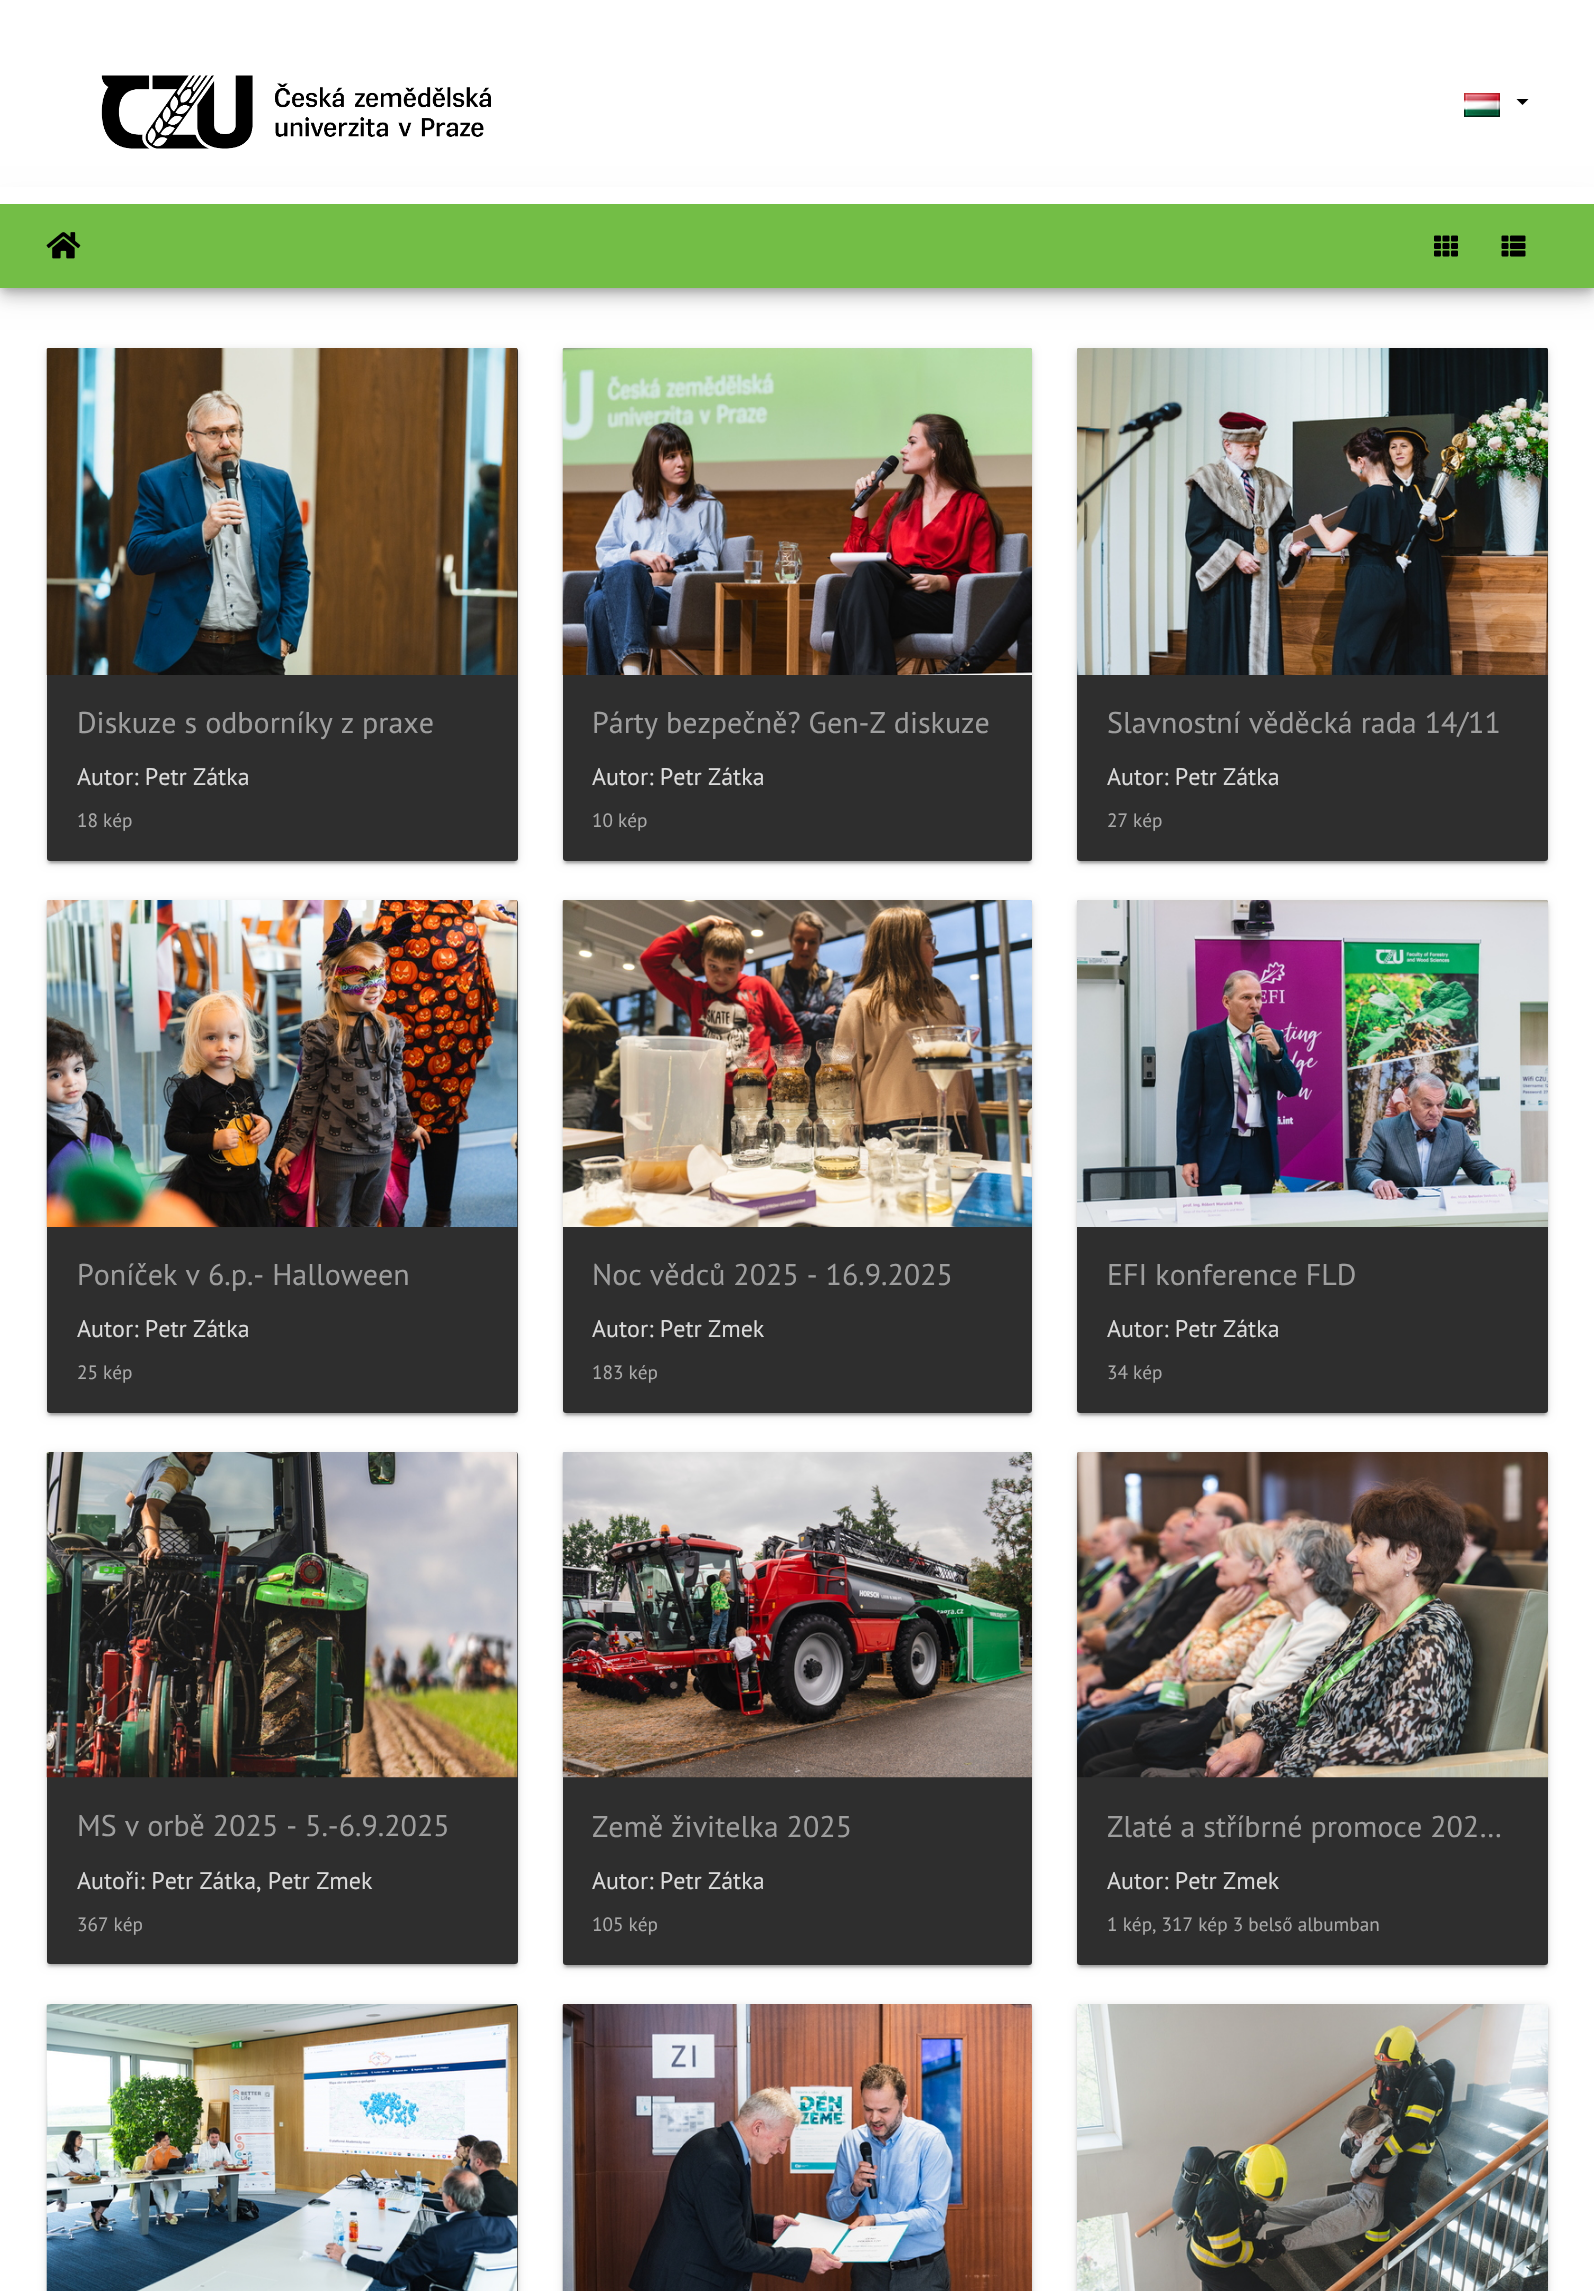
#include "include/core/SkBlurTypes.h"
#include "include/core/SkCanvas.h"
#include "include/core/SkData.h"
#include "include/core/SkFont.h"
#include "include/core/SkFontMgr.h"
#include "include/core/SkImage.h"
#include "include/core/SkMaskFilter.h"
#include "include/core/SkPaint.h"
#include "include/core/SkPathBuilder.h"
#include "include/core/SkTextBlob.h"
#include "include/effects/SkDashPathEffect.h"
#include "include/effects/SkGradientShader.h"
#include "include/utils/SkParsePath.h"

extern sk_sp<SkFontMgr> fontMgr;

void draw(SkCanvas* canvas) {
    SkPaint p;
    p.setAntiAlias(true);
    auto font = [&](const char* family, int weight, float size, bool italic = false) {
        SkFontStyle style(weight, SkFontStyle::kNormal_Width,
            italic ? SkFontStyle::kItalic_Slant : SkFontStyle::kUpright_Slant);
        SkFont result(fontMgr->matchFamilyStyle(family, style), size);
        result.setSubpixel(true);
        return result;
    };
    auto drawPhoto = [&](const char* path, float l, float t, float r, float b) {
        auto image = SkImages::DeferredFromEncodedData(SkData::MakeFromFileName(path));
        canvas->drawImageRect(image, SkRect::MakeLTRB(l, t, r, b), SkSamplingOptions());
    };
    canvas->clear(0xFFFFFFFF);
    p.setColor(0x33000000);
    p.setMaskFilter(SkMaskFilter::MakeBlur(kNormal_SkBlurStyle, 4));
    canvas->drawRect(SkRect::MakeLTRB(2, 210, 1593, 291), p);
    p.setMaskFilter(nullptr);
    p.setColor(0x1F000000);
    p.setMaskFilter(SkMaskFilter::MakeBlur(kNormal_SkBlurStyle, 13.5f));
    canvas->drawRect(SkRect::MakeLTRB(0, 206, 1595, 290), p);
    p.setMaskFilter(nullptr);
    p.setColor(0x24000000);
    p.setMaskFilter(SkMaskFilter::MakeBlur(kNormal_SkBlurStyle, 7.5f));
    canvas->drawRect(SkRect::MakeLTRB(0, 213, 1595, 297), p);
    p.setMaskFilter(nullptr);
    p.setColor(0xFFFFFFFF);
    canvas->drawRect(SkRect::MakeLTRB(0, 187, 1594, 204), p);
    drawPhoto("media/1.png", 101, 75, 491, 149);
    drawPhoto("media/2.png", 1464, 93, 1500, 117);
    p.setColor(0xFF000000);
    canvas->drawPath(SkPathBuilder().moveTo(1516.5f, 99).lineTo(1528.5f, 99).lineTo(1522.5f, 105).close().detach(), p);
    p.setColor(0xFF73BE46);
    canvas->drawRect(SkRect::MakeLTRB(0, 204, 1594, 288), p);
    drawPhoto("media/3.png", 46, 232, 81, 259);
    drawPhoto("media/4.png", 1434, 235, 1458, 257);
    drawPhoto("media/5.png", 1501, 235, 1526, 257);
    p.setColor(0x1F000000);
    p.setMaskFilter(SkMaskFilter::MakeBlur(kNormal_SkBlurStyle, 4));
    canvas->drawRoundRect(SkRect::MakeLTRB(47, 350, 518, 863), 3, 3, p);
    p.setMaskFilter(nullptr);
    p.setColor(0x33000000);
    p.setMaskFilter(SkMaskFilter::MakeBlur(kNormal_SkBlurStyle, 1));
    canvas->drawRect(SkRect::MakeLTRB(50, 356, 515, 863), p);
    p.setMaskFilter(nullptr);
    p.setColor(0x24000000);
    p.setMaskFilter(SkMaskFilter::MakeBlur(kNormal_SkBlurStyle, 1.5f));
    canvas->drawRoundRect(SkRect::MakeLTRB(47, 351, 518, 864), 3, 3, p);
    p.setMaskFilter(nullptr);
    p.setColor(0xFF2E2E2E);
    canvas->drawRoundRect(SkRect::MakeLTRB(47, 348, 518, 861), 3, 3, p);
    drawPhoto("media/6.png", 46, 348, 518, 675);
    auto font1 = font("PT Sans", 400, 30);
    p.setColor(0xFF9E9E9E);
    canvas->drawString("Diskuze s odborníky z praxe", 77, 733, font1, p);
    auto font2 = font("PT Sans", 400, 24);
    p.setColor(0xFFDBDBDB);
    canvas->drawString("Autor: Petr Zátka", 77, 785, font2, p);
    auto font3 = font("PT Sans", 400, 19.25f);
    p.setColor(0xFFA9A9A9);
    canvas->drawString("18 kép", 77, 827, font3, p);
    p.setColor(0x1F000000);
    p.setMaskFilter(SkMaskFilter::MakeBlur(kNormal_SkBlurStyle, 4));
    canvas->drawRoundRect(SkRect::MakeLTRB(563, 350, 1032, 863), 3, 3, p);
    p.setMaskFilter(nullptr);
    p.setColor(0x33000000);
    p.setMaskFilter(SkMaskFilter::MakeBlur(kNormal_SkBlurStyle, 1));
    canvas->drawRect(SkRect::MakeLTRB(566, 356, 1029, 863), p);
    p.setMaskFilter(nullptr);
    p.setColor(0x24000000);
    p.setMaskFilter(SkMaskFilter::MakeBlur(kNormal_SkBlurStyle, 1.5f));
    canvas->drawRoundRect(SkRect::MakeLTRB(563, 351, 1032, 864), 3, 3, p);
    p.setMaskFilter(nullptr);
    p.setColor(0xFF2E2E2E);
    canvas->drawRoundRect(SkRect::MakeLTRB(563, 348, 1032, 861), 3, 3, p);
    drawPhoto("media/7.png", 562, 348, 1032, 675);
    p.setColor(0xFF9E9E9E);
    canvas->drawString("Párty bezpečně? Gen-Z diskuze", 592, 733, font1, p);
    p.setColor(0xFFDBDBDB);
    canvas->drawString("Autor: Petr Zátka", 592, 785, font2, p);
    p.setColor(0xFFA9A9A9);
    canvas->drawString("10 kép", 592, 827, font3, p);
    p.setColor(0x1F000000);
    p.setMaskFilter(SkMaskFilter::MakeBlur(kNormal_SkBlurStyle, 4));
    canvas->drawRoundRect(SkRect::MakeLTRB(1077, 350, 1548, 863), 3, 3, p);
    p.setMaskFilter(nullptr);
    p.setColor(0x33000000);
    p.setMaskFilter(SkMaskFilter::MakeBlur(kNormal_SkBlurStyle, 1));
    canvas->drawRect(SkRect::MakeLTRB(1080, 356, 1545, 863), p);
    p.setMaskFilter(nullptr);
    p.setColor(0x24000000);
    p.setMaskFilter(SkMaskFilter::MakeBlur(kNormal_SkBlurStyle, 1.5f));
    canvas->drawRoundRect(SkRect::MakeLTRB(1077, 351, 1548, 864), 3, 3, p);
    p.setMaskFilter(nullptr);
    p.setColor(0xFF2E2E2E);
    canvas->drawRoundRect(SkRect::MakeLTRB(1077, 348, 1548, 861), 3, 3, p);
    drawPhoto("media/8.png", 1077, 348, 1548, 675);
    p.setColor(0xFF9E9E9E);
    canvas->drawString("Slavnostní věděcká rada 14/11", 1107, 733, font1, p);
    p.setColor(0xFFDBDBDB);
    canvas->drawString("Autor: Petr Zátka", 1107, 785, font2, p);
    p.setColor(0xFFA9A9A9);
    canvas->drawString("27 kép", 1107, 827, font3, p);
    p.setColor(0x1F000000);
    p.setMaskFilter(SkMaskFilter::MakeBlur(kNormal_SkBlurStyle, 4));
    canvas->drawRoundRect(SkRect::MakeLTRB(47, 902, 518, 1415), 3, 3, p);
    p.setMaskFilter(nullptr);
    p.setColor(0x33000000);
    p.setMaskFilter(SkMaskFilter::MakeBlur(kNormal_SkBlurStyle, 1));
    canvas->drawRect(SkRect::MakeLTRB(50, 908, 515, 1415), p);
    p.setMaskFilter(nullptr);
    p.setColor(0x24000000);
    p.setMaskFilter(SkMaskFilter::MakeBlur(kNormal_SkBlurStyle, 1.5f));
    canvas->drawRoundRect(SkRect::MakeLTRB(47, 903, 518, 1416), 3, 3, p);
    p.setMaskFilter(nullptr);
    p.setColor(0xFF2E2E2E);
    canvas->drawRoundRect(SkRect::MakeLTRB(47, 900, 518, 1413), 3, 3, p);
    drawPhoto("media/9.png", 46, 900, 518, 1227);
    p.setColor(0xFF9E9E9E);
    canvas->drawString("Poníček v 6.p.- Halloween", 77, 1285, font1, p);
    p.setColor(0xFFDBDBDB);
    canvas->drawString("Autor: Petr Zátka", 77, 1337, font2, p);
    p.setColor(0xFFA9A9A9);
    canvas->drawString("25 kép", 77, 1379, font3, p);
    p.setColor(0x1F000000);
    p.setMaskFilter(SkMaskFilter::MakeBlur(kNormal_SkBlurStyle, 4));
    canvas->drawRoundRect(SkRect::MakeLTRB(563, 902, 1032, 1415), 3, 3, p);
    p.setMaskFilter(nullptr);
    p.setColor(0x33000000);
    p.setMaskFilter(SkMaskFilter::MakeBlur(kNormal_SkBlurStyle, 1));
    canvas->drawRect(SkRect::MakeLTRB(566, 908, 1029, 1415), p);
    p.setMaskFilter(nullptr);
    p.setColor(0x24000000);
    p.setMaskFilter(SkMaskFilter::MakeBlur(kNormal_SkBlurStyle, 1.5f));
    canvas->drawRoundRect(SkRect::MakeLTRB(563, 903, 1032, 1416), 3, 3, p);
    p.setMaskFilter(nullptr);
    p.setColor(0xFF2E2E2E);
    canvas->drawRoundRect(SkRect::MakeLTRB(563, 900, 1032, 1413), 3, 3, p);
    drawPhoto("media/10.png", 562, 900, 1032, 1227);
    p.setColor(0xFF9E9E9E);
    canvas->drawString("Noc vědců 2025 - 16.9.2025", 592, 1285, font1, p);
    p.setColor(0xFFDBDBDB);
    canvas->drawString("Autor: Petr Zmek", 592, 1337, font2, p);
    p.setColor(0xFFA9A9A9);
    canvas->drawString("183 kép", 592, 1379, font3, p);
    p.setColor(0x1F000000);
    p.setMaskFilter(SkMaskFilter::MakeBlur(kNormal_SkBlurStyle, 4));
    canvas->drawRoundRect(SkRect::MakeLTRB(1077, 902, 1548, 1415), 3, 3, p);
    p.setMaskFilter(nullptr);
    p.setColor(0x33000000);
    p.setMaskFilter(SkMaskFilter::MakeBlur(kNormal_SkBlurStyle, 1));
    canvas->drawRect(SkRect::MakeLTRB(1080, 908, 1545, 1415), p);
    p.setMaskFilter(nullptr);
    p.setColor(0x24000000);
    p.setMaskFilter(SkMaskFilter::MakeBlur(kNormal_SkBlurStyle, 1.5f));
    canvas->drawRoundRect(SkRect::MakeLTRB(1077, 903, 1548, 1416), 3, 3, p);
    p.setMaskFilter(nullptr);
    p.setColor(0xFF2E2E2E);
    canvas->drawRoundRect(SkRect::MakeLTRB(1077, 900, 1548, 1413), 3, 3, p);
    drawPhoto("media/11.png", 1077, 900, 1548, 1227);
    p.setColor(0xFF9E9E9E);
    canvas->drawString("EFI konference FLD", 1107, 1285, font1, p);
    p.setColor(0xFFDBDBDB);
    canvas->drawString("Autor: Petr Zátka", 1107, 1337, font2, p);
    p.setColor(0xFFA9A9A9);
    canvas->drawString("34 kép", 1107, 1379, font3, p);
    p.setColor(0x1F000000);
    p.setMaskFilter(SkMaskFilter::MakeBlur(kNormal_SkBlurStyle, 4));
    canvas->drawRoundRect(SkRect::MakeLTRB(47, 1454, 518, 1965), 3, 3, p);
    p.setMaskFilter(nullptr);
    p.setColor(0x33000000);
    p.setMaskFilter(SkMaskFilter::MakeBlur(kNormal_SkBlurStyle, 1));
    canvas->drawRect(SkRect::MakeLTRB(50, 1460, 515, 1965), p);
    p.setMaskFilter(nullptr);
    p.setColor(0x24000000);
    p.setMaskFilter(SkMaskFilter::MakeBlur(kNormal_SkBlurStyle, 1.5f));
    canvas->drawRoundRect(SkRect::MakeLTRB(47, 1455, 518, 1967), 3, 3, p);
    p.setMaskFilter(nullptr);
    p.setColor(0xFF2E2E2E);
    canvas->drawRoundRect(SkRect::MakeLTRB(47, 1452, 518, 1964), 3, 3, p);
    drawPhoto("media/12.png", 46, 1452, 518, 1778);
    p.setColor(0xFF9E9E9E);
    canvas->drawString("MS v orbě 2025 - 5.-6.9.2025", 77, 1836, font1, p);
    p.setColor(0xFFDBDBDB);
    canvas->drawString("Autoři: Petr Zátka, Petr Zmek", 77, 1889, font2, p);
    p.setColor(0xFFA9A9A9);
    canvas->drawString("367 kép", 77, 1931, font3, p);
    p.setColor(0x1F000000);
    p.setMaskFilter(SkMaskFilter::MakeBlur(kNormal_SkBlurStyle, 4));
    canvas->drawRoundRect(SkRect::MakeLTRB(563, 1454, 1032, 1967), 3, 3, p);
    p.setMaskFilter(nullptr);
    p.setColor(0x33000000);
    p.setMaskFilter(SkMaskFilter::MakeBlur(kNormal_SkBlurStyle, 1));
    canvas->drawRect(SkRect::MakeLTRB(566, 1460, 1029, 1967), p);
    p.setMaskFilter(nullptr);
    p.setColor(0x24000000);
    p.setMaskFilter(SkMaskFilter::MakeBlur(kNormal_SkBlurStyle, 1.5f));
    canvas->drawRoundRect(SkRect::MakeLTRB(563, 1455, 1032, 1968), 3, 3, p);
    p.setMaskFilter(nullptr);
    p.setColor(0xFF2E2E2E);
    canvas->drawRoundRect(SkRect::MakeLTRB(563, 1452, 1032, 1965), 3, 3, p);
    drawPhoto("media/13.png", 562, 1452, 1032, 1778);
    p.setColor(0xFF9E9E9E);
    canvas->drawString("Země živitelka 2025", 592, 1837, font1, p);
    p.setColor(0xFFDBDBDB);
    canvas->drawString("Autor: Petr Zátka", 592, 1889, font2, p);
    p.setColor(0xFFA9A9A9);
    canvas->drawString("105 kép", 592, 1931, font3, p);
    p.setColor(0x1F000000);
    p.setMaskFilter(SkMaskFilter::MakeBlur(kNormal_SkBlurStyle, 4));
    canvas->drawRoundRect(SkRect::MakeLTRB(1077, 1454, 1548, 1967), 3, 3, p);
    p.setMaskFilter(nullptr);
    p.setColor(0x33000000);
    p.setMaskFilter(SkMaskFilter::MakeBlur(kNormal_SkBlurStyle, 1));
    canvas->drawRect(SkRect::MakeLTRB(1080, 1460, 1545, 1967), p);
    p.setMaskFilter(nullptr);
    p.setColor(0x24000000);
    p.setMaskFilter(SkMaskFilter::MakeBlur(kNormal_SkBlurStyle, 1.5f));
    canvas->drawRoundRect(SkRect::MakeLTRB(1077, 1455, 1548, 1968), 3, 3, p);
    p.setMaskFilter(nullptr);
    p.setColor(0xFF2E2E2E);
    canvas->drawRoundRect(SkRect::MakeLTRB(1077, 1452, 1548, 1965), 3, 3, p);
    drawPhoto("media/14.png", 1077, 1452, 1548, 1778);
    p.setColor(0xFF9E9E9E);
    canvas->drawString("Zlaté a stříbrné promoce 202…", 1107, 1837, font1, p);
    p.setColor(0xFFDBDBDB);
    canvas->drawString("Autor: Petr Zmek", 1107, 1889, font2, p);
    p.setColor(0xFFA9A9A9);
    canvas->drawString("1 kép, 317 kép 3 belső albumban", 1107, 1931, font3, p);
    p.setColor(0x1F000000);
    p.setMaskFilter(SkMaskFilter::MakeBlur(kNormal_SkBlurStyle, 4));
    canvas->drawRoundRect(SkRect::MakeLTRB(47, 2006, 518, 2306), 3, 3, p);
    p.setMaskFilter(nullptr);
    p.setColor(0x24000000);
    p.setMaskFilter(SkMaskFilter::MakeBlur(kNormal_SkBlurStyle, 1.5f));
    canvas->drawRoundRect(SkRect::MakeLTRB(47, 2007, 518, 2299), 3, 3, p);
    p.setMaskFilter(nullptr);
    p.setColor(0xFF2E2E2E);
    canvas->drawRoundRect(SkRect::MakeLTRB(47, 2004, 518, 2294), 3, 3, p);
    drawPhoto("media/15.png", 46, 2004, 518, 2291);
    p.setColor(0x1F000000);
    p.setMaskFilter(SkMaskFilter::MakeBlur(kNormal_SkBlurStyle, 4));
    canvas->drawRoundRect(SkRect::MakeLTRB(563, 2006, 1032, 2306), 3, 3, p);
    p.setMaskFilter(nullptr);
    p.setColor(0x24000000);
    p.setMaskFilter(SkMaskFilter::MakeBlur(kNormal_SkBlurStyle, 1.5f));
    canvas->drawRoundRect(SkRect::MakeLTRB(563, 2007, 1032, 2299), 3, 3, p);
    p.setMaskFilter(nullptr);
    drawPhoto("media/16.png", 562, 2004, 1032, 2291);
    p.setColor(0x1F000000);
    p.setMaskFilter(SkMaskFilter::MakeBlur(kNormal_SkBlurStyle, 4));
    canvas->drawRoundRect(SkRect::MakeLTRB(1077, 2006, 1548, 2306), 3, 3, p);
    p.setMaskFilter(nullptr);
    p.setColor(0x24000000);
    p.setMaskFilter(SkMaskFilter::MakeBlur(kNormal_SkBlurStyle, 1.5f));
    canvas->drawRoundRect(SkRect::MakeLTRB(1077, 2007, 1548, 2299), 3, 3, p);
    p.setMaskFilter(nullptr);
    drawPhoto("media/17.png", 1077, 2004, 1548, 2291);
}
